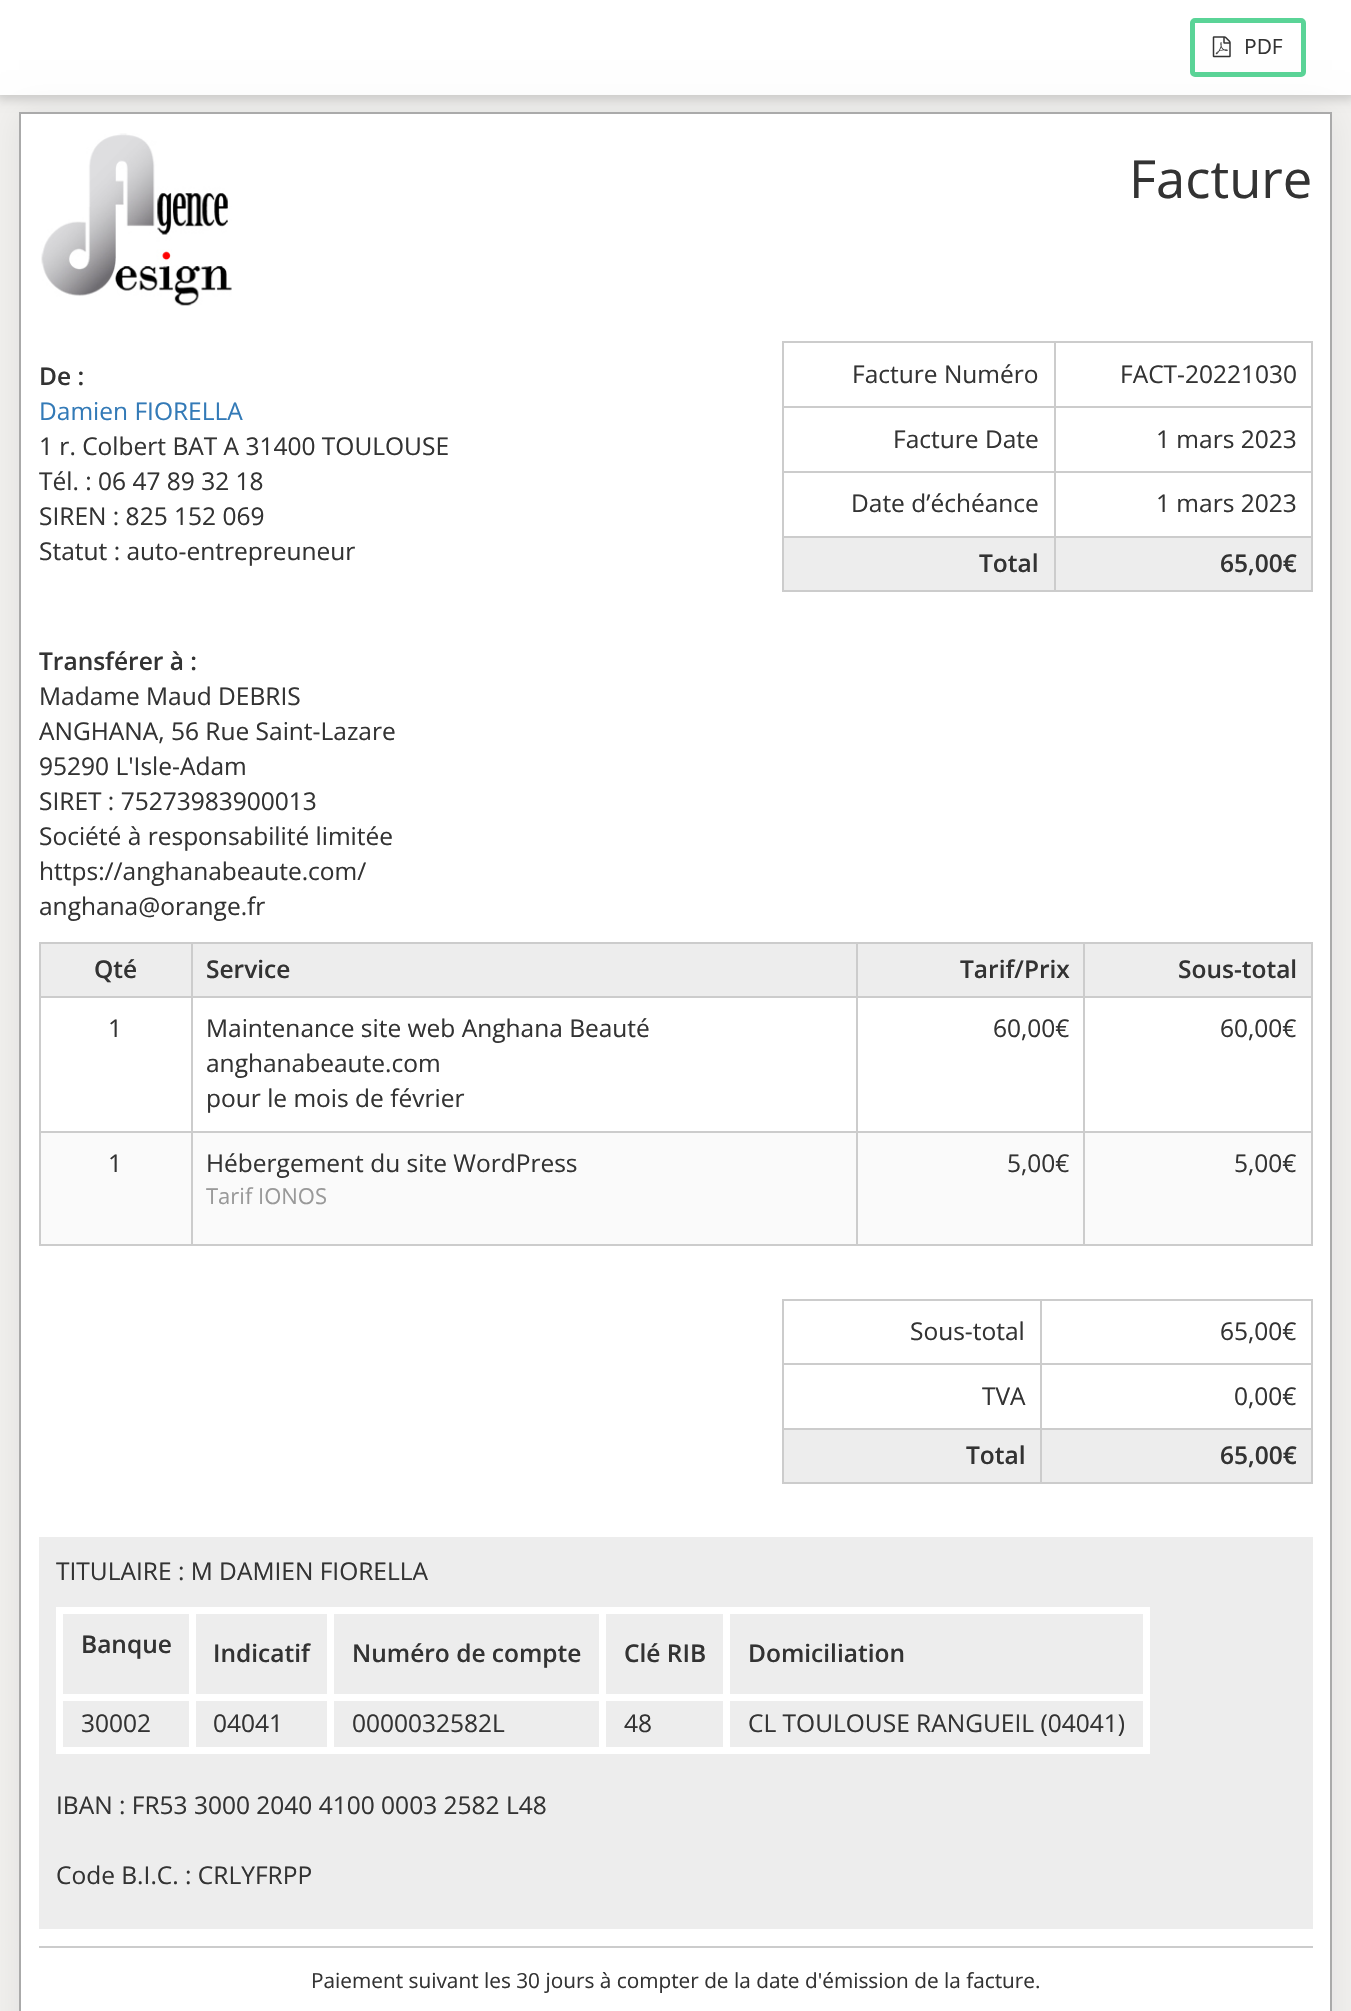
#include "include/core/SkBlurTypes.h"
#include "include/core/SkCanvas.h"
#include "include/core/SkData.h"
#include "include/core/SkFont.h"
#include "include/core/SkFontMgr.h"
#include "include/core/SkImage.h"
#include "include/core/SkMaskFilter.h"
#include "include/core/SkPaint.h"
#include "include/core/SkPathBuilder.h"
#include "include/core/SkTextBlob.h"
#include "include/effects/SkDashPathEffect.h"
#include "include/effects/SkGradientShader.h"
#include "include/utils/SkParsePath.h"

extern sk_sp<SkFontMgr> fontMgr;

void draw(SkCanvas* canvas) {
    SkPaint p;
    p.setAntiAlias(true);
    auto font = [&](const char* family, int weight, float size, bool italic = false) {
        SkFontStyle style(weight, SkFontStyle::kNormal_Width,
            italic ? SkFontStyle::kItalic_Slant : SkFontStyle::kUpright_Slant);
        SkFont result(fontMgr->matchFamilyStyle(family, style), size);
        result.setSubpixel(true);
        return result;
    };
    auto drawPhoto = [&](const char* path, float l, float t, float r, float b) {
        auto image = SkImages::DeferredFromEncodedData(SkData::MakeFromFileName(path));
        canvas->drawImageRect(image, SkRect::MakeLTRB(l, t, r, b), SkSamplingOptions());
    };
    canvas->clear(0xFFF2F1EF);
    p.setColor(0x26000000);
    p.setMaskFilter(SkMaskFilter::MakeBlur(kNormal_SkBlurStyle, 4.5f));
    canvas->drawRect(SkRect::MakeLTRB(-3, -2, 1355, 100), p);
    p.setMaskFilter(nullptr);
    p.setColor(0xFFFFFFFF);
    canvas->drawRect(SkRect::MakeLTRB(0, 0, 1351, 95), p);
    p.setStyle(SkPaint::kStroke_Style);
    p.setStrokeWidth(5);
    p.setColor(0xFF5AD497);
    canvas->drawRoundRect(SkRect::MakeLTRB(1192.5f, 20.5f, 1303.5f, 74.5f), 2.5f, 2.5f, p);
    drawPhoto("media/1.png", 1212, 36, 1231, 58);
    auto font1 = font("Open Sans", 400, 21);
    p.setStyle(SkPaint::kFill_Style);
    p.setColor(0xFF333333);
    canvas->drawString("PDF", 1244, 54, font1, p);
    p.setColor(0x12000000);
    p.setMaskFilter(SkMaskFilter::MakeBlur(kNormal_SkBlurStyle, 17.5f));
    canvas->drawRect(SkRect::MakeLTRB(19, 112, 1332, 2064), p);
    p.setMaskFilter(nullptr);
    p.setColor(0xFFFFFFFF);
    canvas->drawRect(SkRect::MakeLTRB(20, 113, 1331, 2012), p);
    p.setStyle(SkPaint::kStroke_Style);
    p.setStrokeWidth(2);
    p.setColor(0xFFAAAAAA);
    canvas->drawRect(SkRect::MakeLTRB(20, 113, 1331, 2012), p);
    drawPhoto("media/2.png", 41, 133, 232, 306);
    auto font2 = font("Open Sans", 400, 52.5f);
    p.setStyle(SkPaint::kFill_Style);
    p.setColor(0xFF333333);
    canvas->drawString("Facture", 1129, 198, font2, p);
    auto font3 = font("Open Sans", 600, 24.5f);
    canvas->drawString("De :", 39, 385, font3, p);
    auto font4 = font("Open Sans", 400, 24.5f);
    p.setColor(0xFF337AB7);
    canvas->drawString("Damien FIORELLA", 39, 420, font4, p);
    p.setColor(0xFF333333);
    {
        const struct { const char* s; float x, y; } items[] = {
            {"1 r. Colbert BAT A 31400 TOULOUSE", 39, 455},
            {"Tél. : 06 47 89 32 18", 39, 490},
            {"SIREN : 825 152 069", 39, 525},
            {"Statut : auto-entrepreuneur", 39, 560},
        };
        for (auto [s, x, y] : items) {
            canvas->drawString(s, x, y, font4, p);
        }
    }
    {
        const struct { float l, t, r, b; SkColor color; } items[] = {
            {782, 341, 1313, 343, 0xFFCCCCCC},
            {1311, 341, 1313, 592, 0xFFCCCCCC},
            {782, 590, 1313, 592, 0xFFCCCCCC},
            {782, 341, 784, 592, 0xFFCCCCCC},
        };
        for (auto [l, t, r, b, color] : items) {
            p.setColor(color);
            canvas->drawRect(SkRect::MakeLTRB(l, t, r, b), p);
        }
    }
    p.setColor(0xFF333333);
    canvas->drawString("Facture Numéro", 852, 383, font4, p);
    {
        const struct { float l, t, r, b; SkColor color; } items[] = {
            {1054, 406, 1313, 408, 0xFFCCCCCC},
            {1054, 471, 1313, 473, 0xFFCCCCCC},
            {1054, 536, 1313, 538, 0xFFCCCCCC},
            {1054, 536, 1056, 592, 0xFFCCCCCC},
            {782, 536, 1055, 538, 0xFFCCCCCC},
            {1054, 471, 1056, 537, 0xFFCCCCCC},
            {782, 471, 1055, 473, 0xFFCCCCCC},
            {1054, 406, 1056, 473, 0xFFCCCCCC},
            {782, 406, 1055, 408, 0xFFCCCCCC},
            {1054, 341, 1056, 408, 0xFFCCCCCC},
        };
        for (auto [l, t, r, b, color] : items) {
            p.setColor(color);
            canvas->drawRect(SkRect::MakeLTRB(l, t, r, b), p);
        }
    }
    p.setColor(0xFF333333);
    {
        const struct { const char* s; float x, y; } items[] = {
            {"FACT-20221030", 1120, 383},
            {"Facture Date", 893, 448},
            {"1 mars 2023", 1156, 448},
            {"Date d’échéance", 851, 512},
            {"1 mars 2023", 1156, 512},
        };
        for (auto [s, x, y] : items) {
            canvas->drawString(s, x, y, font4, p);
        }
    }
    p.setColor(0xFFEDEDED);
    canvas->drawRect(SkRect::MakeLTRB(784, 538, 1054, 590), p);
    p.setColor(0xFF333333);
    canvas->drawString("Total", 979, 572, font3, p);
    p.setColor(0xFFEDEDED);
    canvas->drawRect(SkRect::MakeLTRB(1056, 538, 1311, 590), p);
    p.setColor(0xFF333333);
    canvas->drawString("65,00€", 1220, 572, font3, p);
    canvas->drawString("Transférer à :", 39, 670, font3, p);
    {
        const struct { const char* s; float x, y; } items[] = {
            {"Madame Maud DEBRIS", 39, 705},
            {"ANGHANA, 56 Rue Saint-Lazare", 39, 740},
            {"95290 L'Isle-Adam", 39, 775},
            {"SIRET : 75273983900013", 39, 810},
            {"Société à responsabilité limitée", 39, 845},
            {"https://anghanabeaute.com/", 39, 880},
            {"anghana@orange.fr", 39, 915},
        };
        for (auto [s, x, y] : items) {
            canvas->drawString(s, x, y, font4, p);
        }
    }
    {
        const struct { float l, t, r, b; SkColor color; } items[] = {
            {39, 942, 1313, 944, 0xFFCCCCCC},
            {1311, 942, 1313, 1246, 0xFFCCCCCC},
            {39, 1244, 1313, 1246, 0xFFCCCCCC},
            {39, 942, 41, 1246, 0xFFCCCCCC},
            {41, 944, 191, 996, 0xFFEDEDED},
        };
        for (auto [l, t, r, b, color] : items) {
            p.setColor(color);
            canvas->drawRect(SkRect::MakeLTRB(l, t, r, b), p);
        }
    }
    p.setColor(0xFF333333);
    canvas->drawString("Qté", 94, 978, font3, p);
    {
        const struct { float l, t, r, b; SkColor color; } items[] = {
            {193, 944, 856, 996, 0xFFEDEDED},
            {1083, 996, 1313, 998, 0xFFCCCCCC},
            {1083, 1131, 1313, 1133, 0xFFCCCCCC},
            {41, 1133, 1311, 1244, 0xFFFAFAFA},
            {1083, 1131, 1085, 1246, 0xFFCCCCCC},
            {856, 1131, 1085, 1133, 0xFFCCCCCC},
            {1083, 996, 1085, 1132, 0xFFCCCCCC},
            {856, 996, 1085, 998, 0xFFCCCCCC},
            {856, 1131, 858, 1246, 0xFFCCCCCC},
            {191, 1131, 858, 1133, 0xFFCCCCCC},
            {856, 996, 858, 1132, 0xFFCCCCCC},
            {191, 996, 858, 998, 0xFFCCCCCC},
            {191, 1131, 193, 1246, 0xFFCCCCCC},
            {39, 1131, 193, 1133, 0xFFCCCCCC},
            {191, 996, 193, 1132, 0xFFCCCCCC},
            {39, 996, 193, 998, 0xFFCCCCCC},
            {191, 942, 193, 998, 0xFFCCCCCC},
        };
        for (auto [l, t, r, b, color] : items) {
            p.setColor(color);
            canvas->drawRect(SkRect::MakeLTRB(l, t, r, b), p);
        }
    }
    p.setColor(0xFF333333);
    canvas->drawString("Service", 206, 978, font3, p);
    p.setColor(0xFFEDEDED);
    canvas->drawRect(SkRect::MakeLTRB(858, 944, 1083, 996), p);
    p.setColor(0xFFCCCCCC);
    canvas->drawRect(SkRect::MakeLTRB(856, 942, 858, 998), p);
    p.setColor(0xFF333333);
    canvas->drawString("Tarif/Prix", 960, 978, font3, p);
    p.setColor(0xFFEDEDED);
    canvas->drawRect(SkRect::MakeLTRB(1085, 944, 1311, 996), p);
    p.setColor(0xFFCCCCCC);
    canvas->drawRect(SkRect::MakeLTRB(1083, 942, 1085, 998), p);
    p.setColor(0xFF333333);
    canvas->drawString("Sous-total", 1178, 978, font3, p);
    {
        const struct { const char* s; float x, y; } items[] = {
            {"1", 108, 1037},
            {"Maintenance site web Anghana Beauté", 206, 1037},
            {"anghanabeaute.com", 206, 1072},
            {"pour le mois de février", 206, 1107},
            {"60,00€", 993, 1037},
            {"60,00€", 1220, 1037},
            {"1", 108, 1172},
            {"Hébergement du site WordPress", 206, 1172},
        };
        for (auto [s, x, y] : items) {
            canvas->drawString(s, x, y, font4, p);
        }
    }
    auto font5 = font("Open Sans", 400, 22);
    p.setColor(0xFF999999);
    canvas->drawString("Tarif IONOS", 206, 1204, font5, p);
    p.setColor(0xFF333333);
    canvas->drawString("5,00€", 1007, 1172, font4, p);
    canvas->drawString("5,00€", 1234, 1172, font4, p);
    {
        const struct { float l, t, r, b; SkColor color; } items[] = {
            {782, 1299, 1313, 1301, 0xFFCCCCCC},
            {1311, 1299, 1313, 1484, 0xFFCCCCCC},
            {782, 1482, 1313, 1484, 0xFFCCCCCC},
            {782, 1299, 784, 1484, 0xFFCCCCCC},
        };
        for (auto [l, t, r, b, color] : items) {
            p.setColor(color);
            canvas->drawRect(SkRect::MakeLTRB(l, t, r, b), p);
        }
    }
    p.setColor(0xFF333333);
    canvas->drawString("Sous-total", 910, 1340, font4, p);
    {
        const struct { float l, t, r, b; SkColor color; } items[] = {
            {1040, 1363, 1313, 1365, 0xFFCCCCCC},
            {1040, 1428, 1313, 1430, 0xFFCCCCCC},
            {1040, 1428, 1042, 1484, 0xFFCCCCCC},
            {782, 1428, 1041, 1430, 0xFFCCCCCC},
            {1040, 1363, 1042, 1430, 0xFFCCCCCC},
            {782, 1363, 1041, 1365, 0xFFCCCCCC},
            {1040, 1299, 1042, 1365, 0xFFCCCCCC},
        };
        for (auto [l, t, r, b, color] : items) {
            p.setColor(color);
            canvas->drawRect(SkRect::MakeLTRB(l, t, r, b), p);
        }
    }
    p.setColor(0xFF333333);
    {
        const struct { const char* s; float x, y; } items[] = {
            {"65,00€", 1220, 1340},
            {"TVA", 982, 1405},
            {"0,00€", 1234, 1405},
        };
        for (auto [s, x, y] : items) {
            canvas->drawString(s, x, y, font4, p);
        }
    }
    p.setColor(0xFFEDEDED);
    canvas->drawRect(SkRect::MakeLTRB(784, 1430, 1040, 1482), p);
    p.setColor(0xFF333333);
    canvas->drawString("Total", 966, 1464, font3, p);
    p.setColor(0xFFEDEDED);
    canvas->drawRect(SkRect::MakeLTRB(1042, 1430, 1311, 1482), p);
    p.setColor(0xFF333333);
    canvas->drawString("65,00€", 1220, 1464, font3, p);
    p.setColor(0xFFEDEDED);
    canvas->drawRect(SkRect::MakeLTRB(39, 1537, 1313, 1929), p);
    p.setColor(0xFF333333);
    canvas->drawString("TITULAIRE : M DAMIEN FIORELLA", 56, 1580, font4, p);
    {
        const struct { float l, t, r, b; SkColor color; } items[] = {
            {723, 1607, 1150, 1614, 0xFFFFFFFF},
            {723, 1694, 1150, 1701, 0xFFFFFFFF},
            {1143, 1694, 1150, 1754, 0xFFFFFFFF},
            {723, 1747, 1150, 1754, 0xFFFFFFFF},
            {723, 1694, 730, 1754, 0xFFFFFFFF},
            {599, 1694, 730, 1701, 0xFFFFFFFF},
            {723, 1607, 730, 1701, 0xFFFFFFFF},
            {599, 1607, 730, 1614, 0xFFFFFFFF},
            {599, 1747, 730, 1754, 0xFFFFFFFF},
            {599, 1694, 606, 1754, 0xFFFFFFFF},
            {327, 1694, 606, 1701, 0xFFFFFFFF},
            {599, 1607, 606, 1701, 0xFFFFFFFF},
            {327, 1607, 606, 1614, 0xFFFFFFFF},
            {327, 1747, 606, 1754, 0xFFFFFFFF},
            {327, 1694, 334, 1754, 0xFFFFFFFF},
            {189, 1694, 334, 1701, 0xFFFFFFFF},
            {327, 1607, 334, 1701, 0xFFFFFFFF},
            {189, 1607, 334, 1614, 0xFFFFFFFF},
            {189, 1747, 334, 1754, 0xFFFFFFFF},
            {189, 1694, 196, 1754, 0xFFFFFFFF},
            {56, 1694, 196, 1701, 0xFFFFFFFF},
            {189, 1607, 196, 1701, 0xFFFFFFFF},
            {56, 1607, 196, 1614, 0xFFFFFFFF},
            {56, 1747, 196, 1754, 0xFFFFFFFF},
            {56, 1694, 63, 1754, 0xFFFFFFFF},
            {56, 1607, 63, 1701, 0xFFFFFFFF},
        };
        for (auto [l, t, r, b, color] : items) {
            p.setColor(color);
            canvas->drawRect(SkRect::MakeLTRB(l, t, r, b), p);
        }
    }
    p.setColor(0xFF333333);
    {
        const struct { const char* s; float x, y; } items[] = {
            {"Banque", 81, 1653},
            {"Indicatif", 213, 1662},
            {"Numéro de compte", 352, 1662},
            {"Clé RIB", 624, 1662},
        };
        for (auto [s, x, y] : items) {
            canvas->drawString(s, x, y, font3, p);
        }
    }
    p.setColor(0xFFFFFFFF);
    canvas->drawRect(SkRect::MakeLTRB(1143, 1607, 1150, 1701), p);
    p.setColor(0xFF333333);
    canvas->drawString("Domiciliation", 748, 1662, font3, p);
    {
        const struct { const char* s; float x, y; } items[] = {
            {"30002", 81, 1732},
            {"04041", 213, 1732},
            {"0000032582L", 352, 1732},
            {"48", 624, 1732},
            {"CL TOULOUSE RANGUEIL (04041)", 748, 1732},
            {"IBAN : FR53 3000 2040 4100 0003 2582 L48", 56, 1814},
            {"Code B.I.C. : CRLYFRPP", 56, 1884},
        };
        for (auto [s, x, y] : items) {
            canvas->drawString(s, x, y, font4, p);
        }
    }
    p.setColor(0xFFCCCCCC);
    canvas->drawRect(SkRect::MakeLTRB(39, 1946, 1313, 1948), p);
    auto font6 = font("Open Sans", 400, 20.8f);
    p.setColor(0xFF333333);
    canvas->drawString("Paiement suivant les 30 jours à compter de la date d'émission de la facture.", 311, 1988, font6, p);
}
